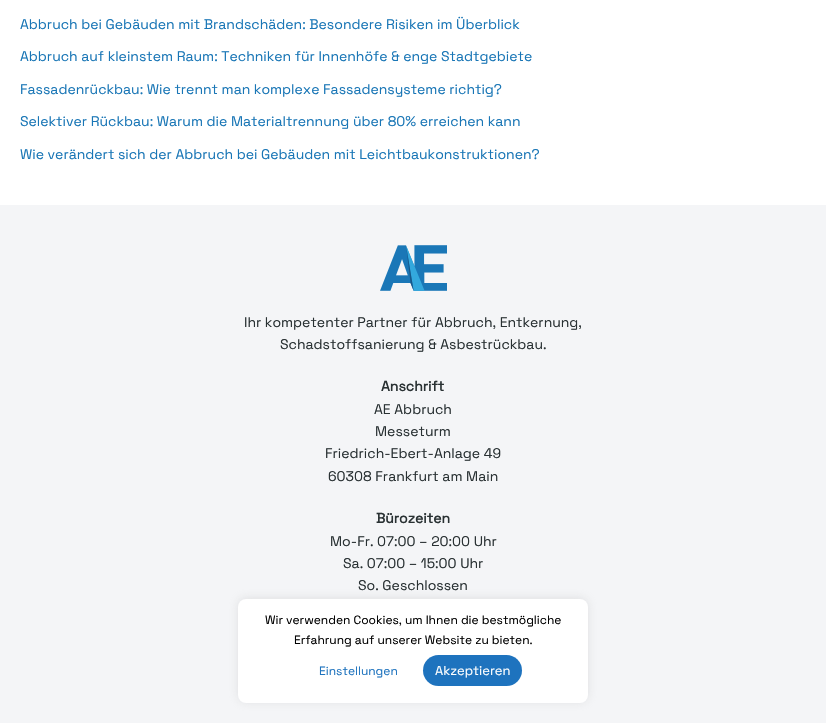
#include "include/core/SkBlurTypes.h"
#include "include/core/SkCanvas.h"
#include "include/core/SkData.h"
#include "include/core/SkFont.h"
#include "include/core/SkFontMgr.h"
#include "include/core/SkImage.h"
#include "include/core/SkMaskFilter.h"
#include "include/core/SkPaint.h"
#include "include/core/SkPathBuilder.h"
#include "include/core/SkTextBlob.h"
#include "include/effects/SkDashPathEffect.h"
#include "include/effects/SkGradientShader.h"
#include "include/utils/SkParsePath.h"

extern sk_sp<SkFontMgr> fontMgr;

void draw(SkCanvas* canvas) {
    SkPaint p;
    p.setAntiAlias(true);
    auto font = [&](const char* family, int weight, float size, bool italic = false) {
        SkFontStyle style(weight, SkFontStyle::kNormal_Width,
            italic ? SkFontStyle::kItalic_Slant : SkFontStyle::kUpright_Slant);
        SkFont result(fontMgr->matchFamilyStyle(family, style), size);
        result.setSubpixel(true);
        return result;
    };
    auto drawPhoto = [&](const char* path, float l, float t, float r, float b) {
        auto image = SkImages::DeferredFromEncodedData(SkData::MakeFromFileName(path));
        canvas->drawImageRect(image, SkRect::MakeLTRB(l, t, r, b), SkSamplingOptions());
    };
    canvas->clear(0xFFFFFFFF);
    auto font1 = font("Space Grotesk", 300, 14);
    p.setColor(0xFF1976B6);
    {
        const struct { const char* s; float x, y; } items[] = {
            {"Abbruch bei Gebäuden mit Brandschäden: Besondere Risiken im Überblick", 20, 29},
            {"Abbruch auf kleinstem Raum: Techniken für Innenhöfe & enge Stadtgebiete", 20, 61},
            {"Fassadenrückbau: Wie trennt man komplexe Fassadensysteme richtig?", 20, 94},
            {"Selektiver Rückbau: Warum die Materialtrennung über 80% erreichen kann", 20, 126},
            {"Wie verändert sich der Abbruch bei Gebäuden mit Leichtbaukonstruktionen?", 20, 159},
        };
        for (auto [s, x, y] : items) {
            canvas->drawString(s, x, y, font1, p);
        }
    }
    p.setColor(0xFFF4F5F7);
    canvas->drawRect(SkRect::MakeLTRB(0, 205, 826, 723), p);
    drawPhoto("media/1.png", 380, 245, 447, 291);
    p.setColor(0xFF293133);
    canvas->drawString("Ihr kompetenter Partner für Abbruch, Entkernung,", 244, 327, font1, p);
    canvas->drawString("Schadstoffsanierung & Asbestrückbau.", 280, 349, font1, p);
    auto font2 = font("Space Grotesk", 700, 14);
    canvas->drawString("Anschrift", 381, 391, font2, p);
    {
        const struct { const char* s; float x, y; } items[] = {
            {"AE Abbruch", 374, 414},
            {"Messeturm", 375, 436},
            {"Friedrich-Ebert-Anlage 49", 325, 458},
            {"60308 Frankfurt am Main", 328, 481},
        };
        for (auto [s, x, y] : items) {
            canvas->drawString(s, x, y, font1, p);
        }
    }
    canvas->drawString("Bürozeiten", 376, 523, font2, p);
    {
        const struct { const char* s; float x, y; } items[] = {
            {"Mo-Fr. 07:00 – 20:00 Uhr", 330, 546},
            {"Sa. 07:00 – 15:00 Uhr", 343, 568},
            {"So. Geschlossen", 358, 590},
        };
        for (auto [s, x, y] : items) {
            canvas->drawString(s, x, y, font1, p);
        }
    }
    p.setColor(0x4DACABAB);
    p.setMaskFilter(SkMaskFilter::MakeBlur(kNormal_SkBlurStyle, 5));
    canvas->drawRoundRect(SkRect::MakeLTRB(238, 598, 588, 702), 8, 8, p);
    p.setMaskFilter(nullptr);
    p.setColor(0xFFFFFFFF);
    canvas->drawRoundRect(SkRect::MakeLTRB(238, 599, 588, 703), 8, 8, p);
    auto font3 = font("Space Grotesk", 300, 12);
    p.setColor(0xFF000000);
    canvas->drawString("Wir verwenden Cookies, um Ihnen die bestmögliche", 265, 624, font3, p);
    canvas->drawString("Erfahrung auf unserer Website zu bieten.", 294, 644, font3, p);
    p.setColor(0xFF1E73BE);
    canvas->drawString("Einstellungen", 319, 675, font3, p);
    canvas->drawRoundRect(SkRect::MakeLTRB(423, 655, 522, 686), 15.5f, 15.5f, p);
    auto font4 = font("Space Grotesk", 300, 13);
    p.setColor(0xFFFFFFFF);
    canvas->drawString("Akzeptieren", 435, 675, font4, p);
}
